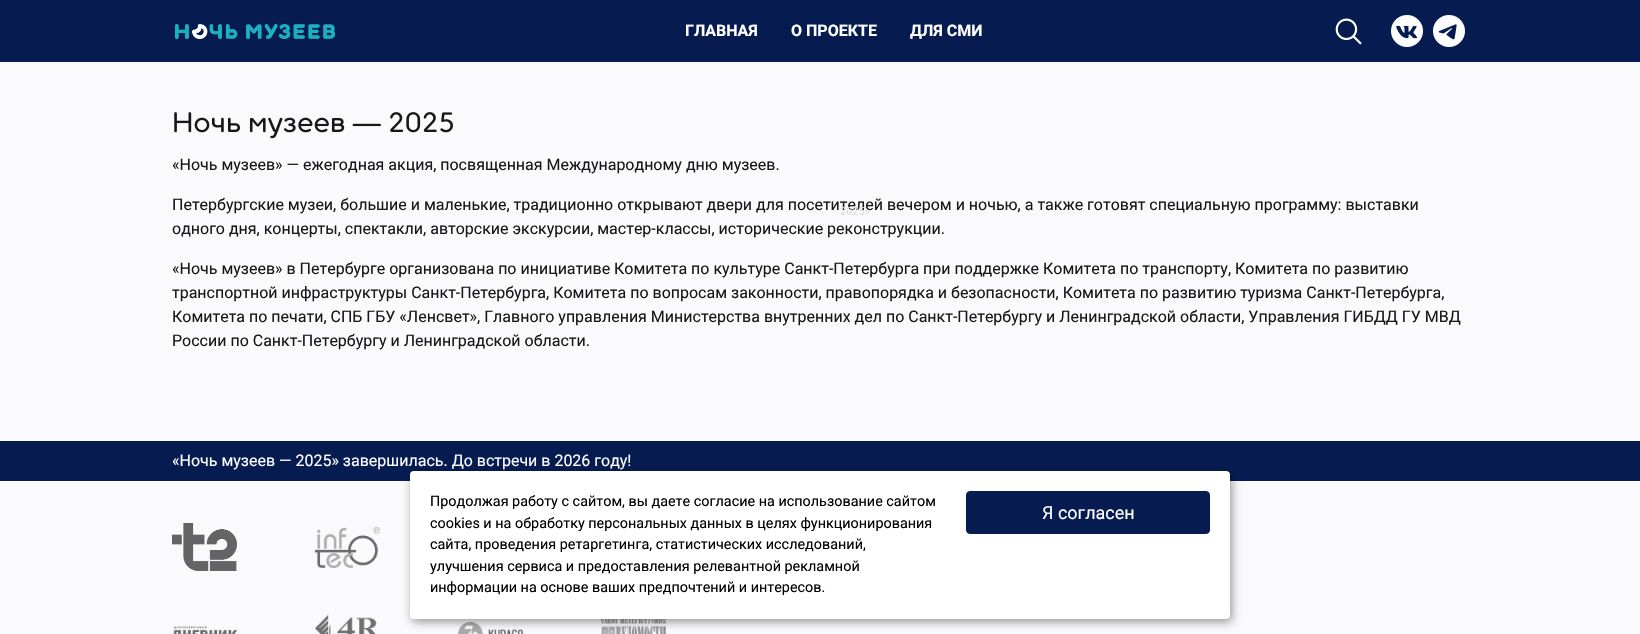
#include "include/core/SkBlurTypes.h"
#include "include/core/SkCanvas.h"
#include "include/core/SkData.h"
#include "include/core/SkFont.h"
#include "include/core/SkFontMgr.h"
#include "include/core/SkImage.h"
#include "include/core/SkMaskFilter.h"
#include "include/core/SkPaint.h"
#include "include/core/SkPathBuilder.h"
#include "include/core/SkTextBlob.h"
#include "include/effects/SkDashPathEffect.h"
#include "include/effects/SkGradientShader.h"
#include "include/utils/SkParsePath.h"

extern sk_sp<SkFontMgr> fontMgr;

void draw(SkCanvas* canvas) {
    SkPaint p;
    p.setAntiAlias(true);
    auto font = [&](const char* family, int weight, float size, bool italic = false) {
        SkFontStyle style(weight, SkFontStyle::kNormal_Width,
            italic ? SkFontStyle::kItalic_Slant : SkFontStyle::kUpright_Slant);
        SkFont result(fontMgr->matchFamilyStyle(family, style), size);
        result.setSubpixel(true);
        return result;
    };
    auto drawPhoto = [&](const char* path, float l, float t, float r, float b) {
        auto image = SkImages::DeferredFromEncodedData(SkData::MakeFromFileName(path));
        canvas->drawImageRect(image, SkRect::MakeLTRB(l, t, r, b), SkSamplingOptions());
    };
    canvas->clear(0xFFFAFAFD);
    p.setColor(0xFF061C51);
    canvas->drawRect(SkRect::MakeLTRB(0, 0, 1640, 62), p);
    drawPhoto("media/1.png", 175, 24, 335, 39);
    auto font1 = font("Roboto", 700, 16);
    p.setColor(0xFFFFFFFF);
    canvas->drawString("ГЛАВНАЯ", 685, 36, font1, p);
    canvas->drawString("О ПРОЕКТЕ", 791, 36, font1, p);
    auto font2 = font("Roboto", 400, 16);
    p.setColor(0xFF17171B);
    canvas->drawString("Петербургские музеи, большие и маленькие, традиционно открывают двери для посетителей вечером и ночью, а также готовят специальную программу: выставки", 172, 210, font2, p);
    auto font3 = font("Roboto", 400, 11);
    p.setColor(0xFFDCDCDF);
    canvas->drawString("2025»", 840, 215, font3, p);
    p.setColor(0xFFFFFFFF);
    canvas->drawString("ДЛЯ СМИ", 910, 36, font1, p);
    drawPhoto("media/2.png", 1335, 18, 1362, 45);
    drawPhoto("media/3.png", 1391, 15, 1423, 47);
    drawPhoto("media/4.png", 1433, 15, 1465, 47);
    drawPhoto("media/5.png", 174, 112, 453, 139);
    p.setColor(0xFF17171B);
    {
        const struct { const char* s; float x, y; } items[] = {
            {"«Ночь музеев» — ежегодная акция, посвященная Международному дню музеев.", 172, 170},
            {"одного дня, концерты, спектакли, авторские экскурсии, мастер-классы, исторические реконструкции.", 172, 234},
            {"«Ночь музеев» в Петербурге организована по инициативе Комитета по культуре Санкт-Петербурга при поддержке Комитета по транспорту, Комитета по развитию", 172, 274},
            {"транспортной инфраструктуры Санкт-Петербурга, Комитета по вопросам законности, правопорядка и безопасности, Комитета по развитию туризма Санкт-Петербурга,", 172, 298},
            {"Комитета по печати, СПБ ГБУ «Ленсвет», Главного управления Министерства внутренних дел по Санкт-Петербургу и Ленинградской области, Управления ГИБДД ГУ МВД", 172, 322},
            {"России по Санкт-Петербургу и Ленинградской области.", 172, 346},
        };
        for (auto [s, x, y] : items) {
            canvas->drawString(s, x, y, font2, p);
        }
    }
    p.setColor(0xFF061C51);
    canvas->drawRect(SkRect::MakeLTRB(0, 441, 1640, 481), p);
    p.setColor(0xFFFFFFFF);
    canvas->drawString("«Ночь музеев — 2025» завершилась. До встречи в 2026 году!", 172, 466, font2, p);
    drawPhoto("media/6.png", 172, 523, 237, 571);
    drawPhoto("media/7.png", 315, 527, 380, 568);
    drawPhoto("media/8.png", 173, 626, 237, 634);
    drawPhoto("media/9.png", 315, 615, 377, 634);
    drawPhoto("media/10.png", 458, 622, 523, 634);
    drawPhoto("media/11.png", 601, 619, 666, 634);
    p.setColor(0x66000000);
    p.setMaskFilter(SkMaskFilter::MakeBlur(kNormal_SkBlurStyle, 5));
    canvas->drawRoundRect(SkRect::MakeLTRB(412, 474, 1232, 622), 4, 4, p);
    p.setMaskFilter(nullptr);
    p.setColor(0xFFFFFFFF);
    canvas->drawRoundRect(SkRect::MakeLTRB(410, 471, 1230, 619), 4, 4, p);
    auto font4 = font("Roboto", 400, 14.4f);
    p.setColor(0xFF000000);
    {
        const struct { const char* s; float x, y; } items[] = {
            {"Продолжая работу с сайтом, вы даете согласие на использование сайтом", 430, 506},
            {"cookies и на обработку персональных данных в целях функционирования", 430, 528},
            {"сайта, проведения ретаргетинга, статистических исследований,", 430, 549},
            {"улучшения сервиса и предоставления релевантной рекламной", 430, 571},
            {"информации на основе ваших предпочтений и интересов.", 430, 592},
        };
        for (auto [s, x, y] : items) {
            canvas->drawString(s, x, y, font4, p);
        }
    }
    p.setColor(0xFF061C51);
    canvas->drawRoundRect(SkRect::MakeLTRB(966.5f, 491.5f, 1209.5f, 533.5f), 3.5f, 3.5f, p);
    p.setStyle(SkPaint::kStroke_Style);
    p.setStrokeWidth(1);
    canvas->drawRoundRect(SkRect::MakeLTRB(966.5f, 491.5f, 1209.5f, 533.5f), 3.5f, 3.5f, p);
    auto font5 = font("Roboto", 400, 18);
    p.setStyle(SkPaint::kFill_Style);
    p.setColor(0xFFFFFFFF);
    canvas->drawString("Я согласен", 1042, 519, font5, p);
}
